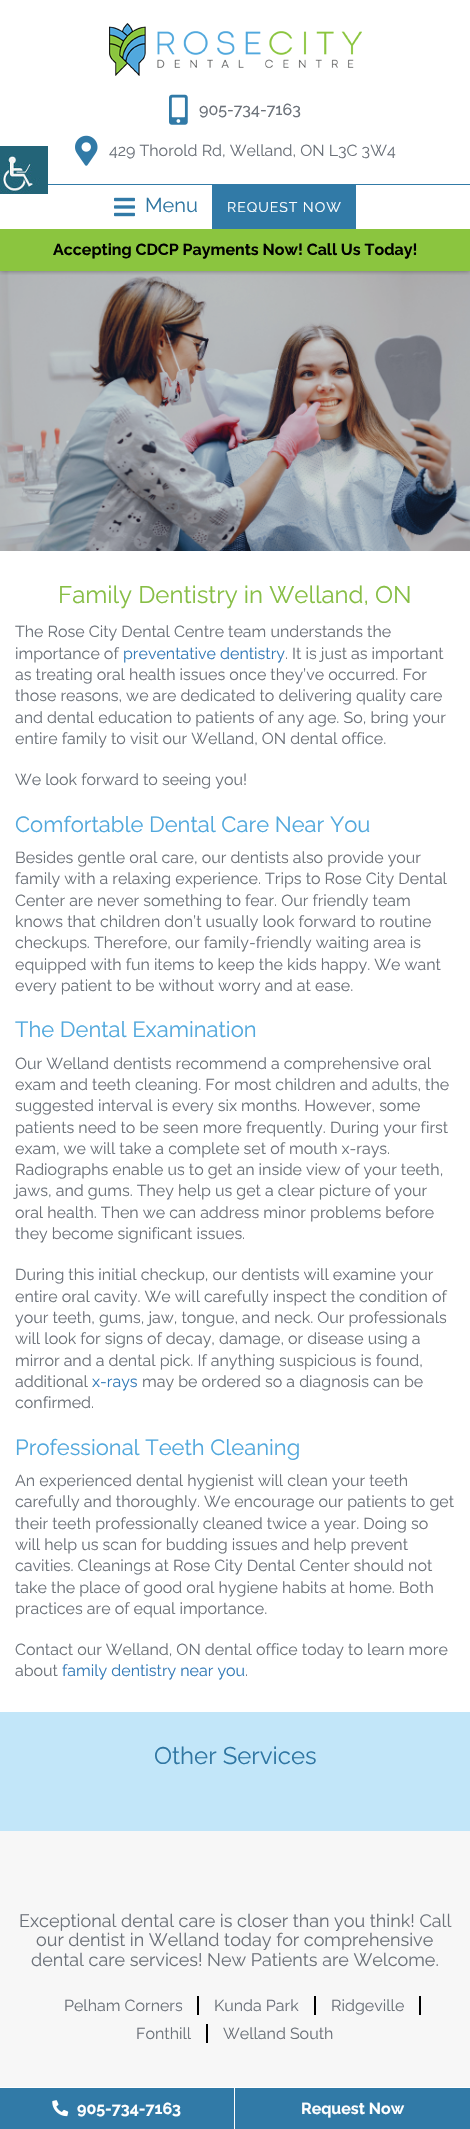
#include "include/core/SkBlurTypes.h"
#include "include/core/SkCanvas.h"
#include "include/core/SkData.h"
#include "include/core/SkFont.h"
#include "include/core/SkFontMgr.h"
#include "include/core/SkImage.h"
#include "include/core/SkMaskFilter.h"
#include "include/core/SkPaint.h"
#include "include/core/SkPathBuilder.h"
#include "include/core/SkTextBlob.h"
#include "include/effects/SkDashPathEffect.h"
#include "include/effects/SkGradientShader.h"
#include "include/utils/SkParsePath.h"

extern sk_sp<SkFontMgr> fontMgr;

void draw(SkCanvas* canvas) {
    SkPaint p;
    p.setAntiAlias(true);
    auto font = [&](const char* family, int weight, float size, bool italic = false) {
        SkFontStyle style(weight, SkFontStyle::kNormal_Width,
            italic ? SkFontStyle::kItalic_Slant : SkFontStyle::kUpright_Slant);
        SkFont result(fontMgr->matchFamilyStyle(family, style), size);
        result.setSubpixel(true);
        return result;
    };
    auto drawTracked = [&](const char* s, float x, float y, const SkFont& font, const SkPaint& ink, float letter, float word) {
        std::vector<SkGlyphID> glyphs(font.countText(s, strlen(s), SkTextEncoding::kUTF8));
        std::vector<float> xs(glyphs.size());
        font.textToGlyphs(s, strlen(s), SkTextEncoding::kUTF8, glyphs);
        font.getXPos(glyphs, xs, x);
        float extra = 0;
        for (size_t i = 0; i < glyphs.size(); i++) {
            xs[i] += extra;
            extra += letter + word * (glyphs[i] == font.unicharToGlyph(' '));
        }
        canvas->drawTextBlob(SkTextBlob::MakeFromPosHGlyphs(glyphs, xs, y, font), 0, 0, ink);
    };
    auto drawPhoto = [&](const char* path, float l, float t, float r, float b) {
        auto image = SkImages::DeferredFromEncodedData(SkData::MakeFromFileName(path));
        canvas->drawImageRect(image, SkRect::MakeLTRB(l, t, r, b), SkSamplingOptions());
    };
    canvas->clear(0xFFFFFFFF);
    drawPhoto("media/5.png", 0, 271, 470, 551);
    canvas->save();
    canvas->clipRect(SkRect::MakeLTRB(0, 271, 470, 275));
    p.setColor(0x66000000);
    p.setMaskFilter(SkMaskFilter::MakeBlur(kNormal_SkBlurStyle, 2.5f));
    canvas->drawRect(SkRect::MakeLTRB(0, 0, 470, 271), p);
    p.setMaskFilter(nullptr);
    canvas->restore();
    p.setColor(0xFF317AA7);
    canvas->drawRect(SkRect::MakeLTRB(48, 184, 470, 185), p);
    drawPhoto("media/1.png", 109, 23, 362, 76);
    drawPhoto("media/2.png", 169, 94, 188, 125);
    auto font1 = font("Raleway", 500, 16);
    p.setColor(0xFF6C727A);
    canvas->drawString("905-734-7163", 199, 115, font1, p);
    drawPhoto("media/3.png", 75, 135, 98, 166);
    auto font2 = font("Raleway", 400, 16);
    canvas->drawString("429 Thorold Rd, Welland, ON L3C 3W4", 109, 156, font2, p);
    drawPhoto("media/4.png", 114, 197, 135, 217);
    auto font3 = font("Raleway", 400, 20);
    p.setColor(0xFF2F76A2);
    canvas->drawString("Menu", 145, 212, font3, p);
    p.setColor(0xFF317AA7);
    canvas->drawRect(SkRect::MakeLTRB(212, 185, 356, 229), p);
    auto font4 = font("Raleway", 400, 14);
    p.setColor(0xFFFFFFFF);
    drawTracked("REQUEST NOW", 227, 212, font4, p, 1, 0);
    p.setColor(0xFF8BC53F);
    canvas->drawRect(SkRect::MakeLTRB(0, 229, 470, 271), p);
    auto font5 = font("Raleway", 700, 16);
    p.setColor(0xFF000000);
    canvas->drawString("Accepting CDCP Payments Now! Call Us Today!", 53, 255, font5, p);
    auto font6 = font("Raleway", 400, 24);
    p.setColor(0xFF87BE45);
    canvas->drawString("Family Dentistry in Welland, ON", 58, 603, font6, p);
    p.setColor(0xFF6C727A);
    canvas->drawString("The Rose City Dental Centre team understands the", 15, 637, font2, p);
    canvas->drawString("importance of", 15, 659, font2, p);
    p.setColor(0xFF337AB7);
    canvas->drawString("preventative dentistry", 123, 659, font2, p);
    p.setColor(0xFF6C727A);
    {
        const struct { const char* s; float x, y; } items[] = {
            {". It is just as important", 285, 659},
            {"as treating oral health issues once they’ve occurred. For", 15, 680},
            {"those reasons, we are dedicated to delivering quality care", 15, 701},
            {"and dental education to patients of any age. So, bring your", 15, 723},
            {"entire family to visit our Welland, ON dental office.", 15, 744},
            {"We look forward to seeing you!", 15, 785},
        };
        for (auto [s, x, y] : items) {
            canvas->drawString(s, x, y, font2, p);
        }
    }
    auto font7 = font("Raleway", 400, 22);
    p.setColor(0xFF51A8DD);
    canvas->drawString("Comfortable Dental Care Near You", 15, 832, font7, p);
    p.setColor(0xFF6C727A);
    {
        const struct { const char* s; float x, y; } items[] = {
            {"Besides gentle oral care, our dentists also provide your", 15, 863},
            {"family with a relaxing experience. Trips to Rose City Dental", 15, 884},
            {"Center are never something to fear. Our friendly team", 15, 906},
            {"knows that children don’t usually look forward to routine", 15, 927},
            {"checkups. Therefore, our family-friendly waiting area is", 15, 948},
            {"equipped with fun items to keep the kids happy. We want", 15, 970},
            {"every patient to be without worry and at ease.", 15, 991},
        };
        for (auto [s, x, y] : items) {
            canvas->drawString(s, x, y, font2, p);
        }
    }
    p.setColor(0xFF51A8DD);
    canvas->drawString("The Dental Examination", 15, 1037, font7, p);
    p.setColor(0xFF6C727A);
    {
        const struct { const char* s; float x, y; } items[] = {
            {"Our Welland dentists recommend a comprehensive oral", 15, 1069},
            {"exam and teeth cleaning. For most children and adults, the", 15, 1090},
            {"suggested interval is every six months. However, some", 15, 1111},
            {"patients need to be seen more frequently. During your first", 15, 1133},
            {"exam, we will take a complete set of mouth x-rays.", 15, 1154},
            {"Radiographs enable us to get an inside view of your teeth,", 15, 1175},
            {"jaws, and gums. They help us get a clear picture of your", 15, 1196},
            {"oral health. Then we can address minor problems before", 15, 1218},
            {"they become significant issues.", 15, 1239},
            {"During this initial checkup, our dentists will examine your", 15, 1280},
            {"entire oral cavity. We will carefully inspect the condition of", 15, 1302},
            {"your teeth, gums, jaw, tongue, and neck. Our professionals", 15, 1323},
            {"will look for signs of decay, damage, or disease using a", 15, 1344},
            {"mirror and a dental pick. If anything suspicious is found,", 15, 1366},
            {"additional", 15, 1387},
        };
        for (auto [s, x, y] : items) {
            canvas->drawString(s, x, y, font2, p);
        }
    }
    p.setColor(0xFF337AB7);
    canvas->drawString("x-rays", 92, 1387, font2, p);
    p.setColor(0xFF6C727A);
    canvas->drawString("may be ordered so a diagnosis can be", 142, 1387, font2, p);
    canvas->drawString("confirmed.", 15, 1408, font2, p);
    p.setColor(0xFF51A8DD);
    canvas->drawString("Professional Teeth Cleaning", 15, 1455, font7, p);
    p.setColor(0xFF6C727A);
    {
        const struct { const char* s; float x, y; } items[] = {
            {"An experienced dental hygienist will clean your teeth", 15, 1486},
            {"carefully and thoroughly. We encourage our patients to get", 15, 1507},
            {"their teeth professionally cleaned twice a year. Doing so", 15, 1529},
            {"will help us scan for budding issues and help prevent", 15, 1550},
            {"cavities. Cleanings at Rose City Dental Center should not", 15, 1571},
            {"take the place of good oral hygiene habits at home. Both", 15, 1593},
            {"practices are of equal importance.", 15, 1614},
            {"Contact our Welland, ON dental office today to learn more", 15, 1655},
            {"about", 15, 1676},
        };
        for (auto [s, x, y] : items) {
            canvas->drawString(s, x, y, font2, p);
        }
    }
    p.setColor(0xFF337AB7);
    canvas->drawString("family dentistry near you", 62, 1676, font2, p);
    p.setColor(0xFF6C727A);
    canvas->drawString(".", 245, 1676, font2, p);
    p.setColor(0xFFC2E6F9);
    canvas->drawRect(SkRect::MakeLTRB(0, 1712, 470, 1831), p);
    p.setColor(0xFF2F76A2);
    canvas->drawString("Other Services", 154, 1764, font6, p);
    p.setColor(0xFFF7F7F7);
    canvas->drawRect(SkRect::MakeLTRB(0, 1831, 470, 2087), p);
    auto font8 = font("Raleway", 400, 18);
    p.setColor(0xFF6C727A);
    {
        const struct { const char* s; float x, y; } items[] = {
            {"Exceptional dental care is closer than you think! Call", 19, 1927},
            {"our dentist in Welland today for comprehensive", 36, 1946},
            {"dental care services! New Patients are Welcome.", 31, 1966},
        };
        for (auto [s, x, y] : items) {
            canvas->drawString(s, x, y, font8, p);
        }
    }
    canvas->drawString("Pelham Corners", 64, 2011, font2, p);
    p.setColor(0xFF000000);
    canvas->drawRect(SkRect::MakeLTRB(197, 1996, 199, 2015), p);
    p.setColor(0xFF6C727A);
    canvas->drawString("Kunda Park", 214, 2011, font2, p);
    p.setColor(0xFF000000);
    canvas->drawRect(SkRect::MakeLTRB(314, 1996, 316, 2015), p);
    p.setColor(0xFF6C727A);
    canvas->drawString("Ridgeville", 331, 2011, font2, p);
    p.setColor(0xFF000000);
    canvas->drawRect(SkRect::MakeLTRB(419, 1996, 421, 2015), p);
    p.setColor(0xFF6C727A);
    canvas->drawString("Fonthill", 136, 2039, font2, p);
    p.setColor(0xFF000000);
    canvas->drawRect(SkRect::MakeLTRB(206, 2024, 208, 2043), p);
    p.setColor(0xFF6C727A);
    canvas->drawString("Welland South", 223, 2039, font2, p);
    drawPhoto("media/6.png", 0, 146, 48, 194);
    p.setColor(0xFF317AA7);
    canvas->drawRect(SkRect::MakeLTRB(0, 2088, 234, 2129), p);
    drawPhoto("media/7.png", 52, 2100, 69, 2117);
    p.setColor(0xFFFFFFFF);
    canvas->drawString("905-734-7163", 77, 2114, font5, p);
    p.setColor(0xFF317AA7);
    canvas->drawRect(SkRect::MakeLTRB(235, 2088, 470, 2129), p);
    p.setColor(0xFFFFFFFF);
    canvas->drawString("Request Now", 301, 2114, font5, p);
}
